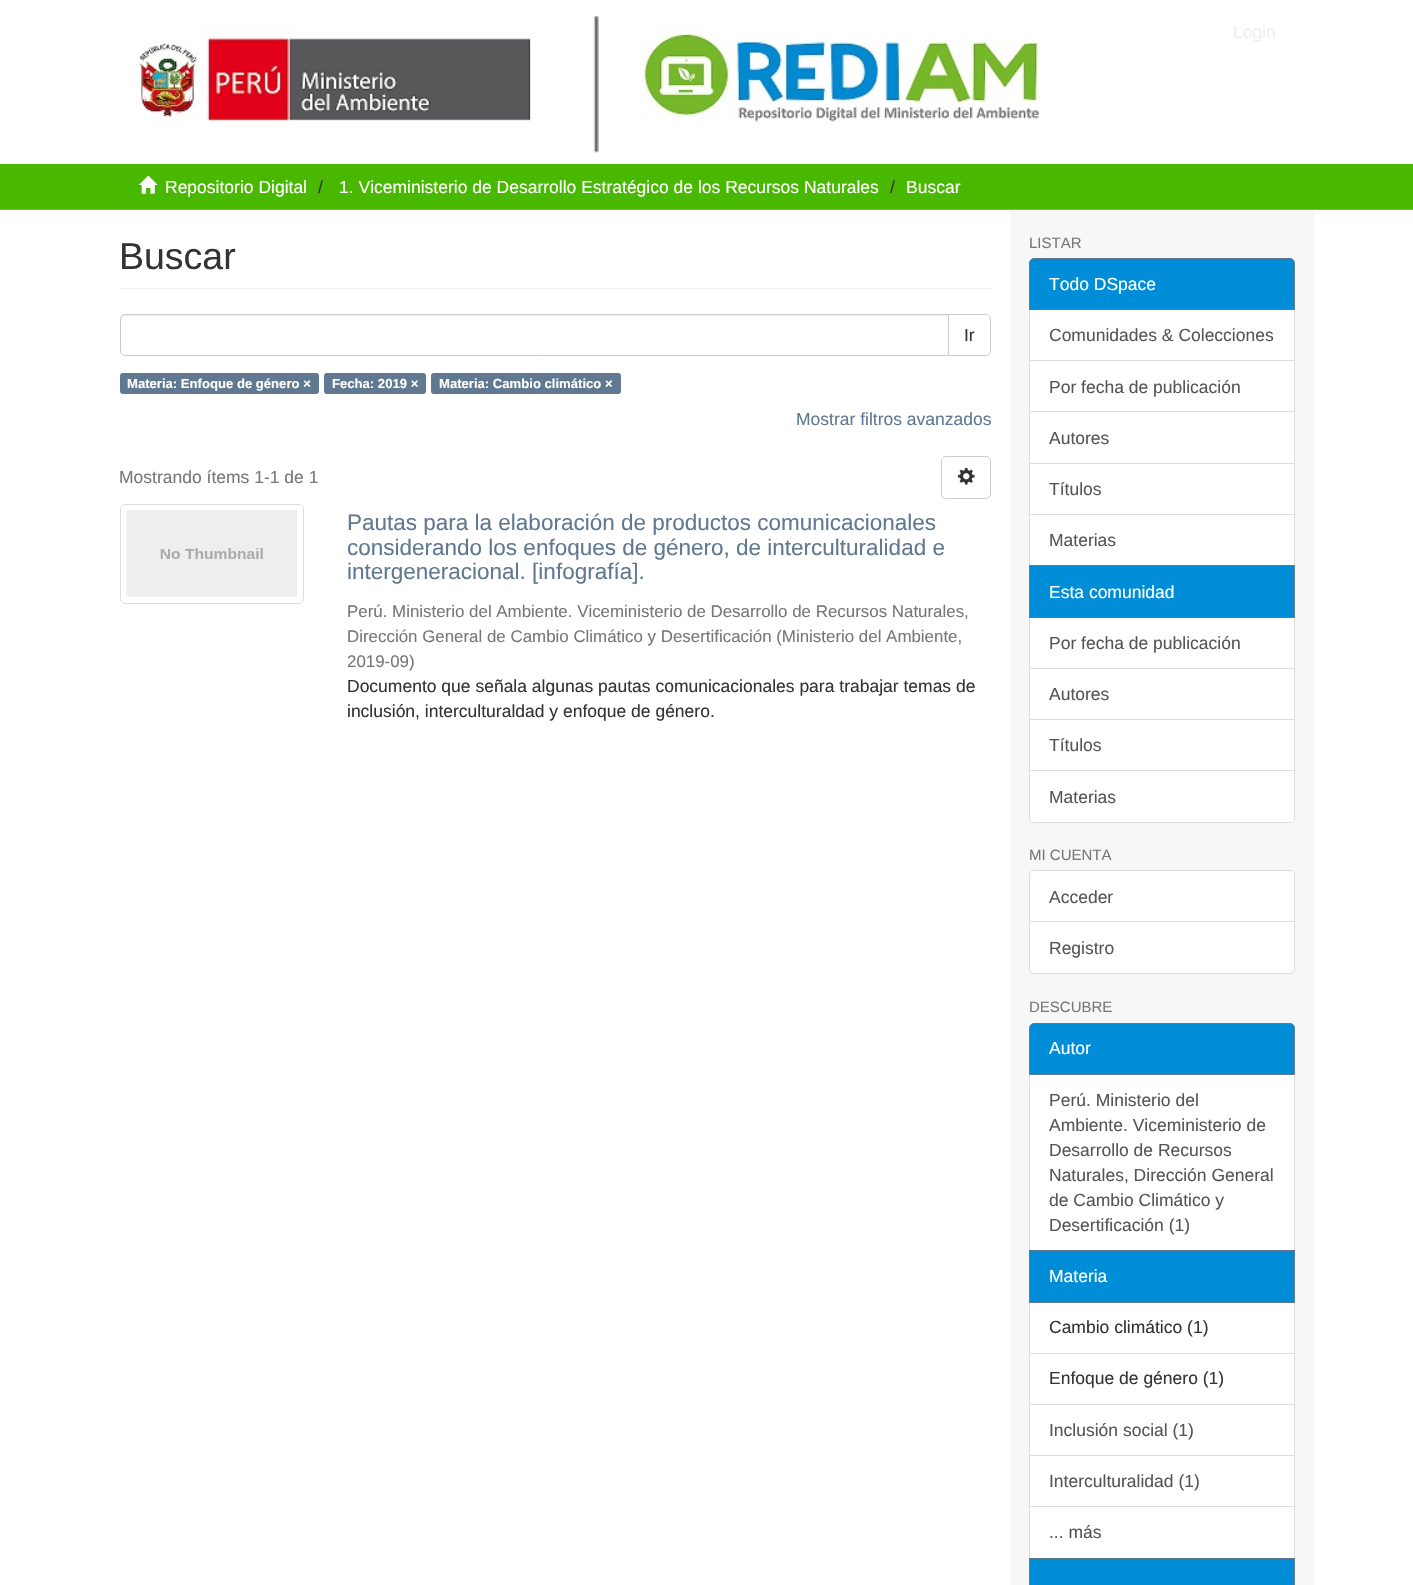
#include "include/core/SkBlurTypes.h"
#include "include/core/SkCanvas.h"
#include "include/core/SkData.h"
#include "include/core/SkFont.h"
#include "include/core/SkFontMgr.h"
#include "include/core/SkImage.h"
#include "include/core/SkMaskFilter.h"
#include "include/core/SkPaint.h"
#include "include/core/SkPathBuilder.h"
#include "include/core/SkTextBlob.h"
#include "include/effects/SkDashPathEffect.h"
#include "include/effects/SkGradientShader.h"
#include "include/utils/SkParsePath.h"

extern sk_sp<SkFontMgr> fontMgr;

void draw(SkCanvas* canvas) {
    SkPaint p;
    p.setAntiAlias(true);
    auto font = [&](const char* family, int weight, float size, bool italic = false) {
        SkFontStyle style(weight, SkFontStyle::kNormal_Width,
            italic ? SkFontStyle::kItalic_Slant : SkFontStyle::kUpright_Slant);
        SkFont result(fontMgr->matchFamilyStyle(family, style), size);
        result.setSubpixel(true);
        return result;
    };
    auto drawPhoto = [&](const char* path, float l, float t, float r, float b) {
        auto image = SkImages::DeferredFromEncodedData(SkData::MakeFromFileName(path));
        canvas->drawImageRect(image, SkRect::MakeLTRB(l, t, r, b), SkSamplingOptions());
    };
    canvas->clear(0xFFFFFFFF);
    drawPhoto("media/1.png", 139, 16, 1040, 153);
    auto font1 = font("Liberation Sans", 400, 17.5f);
    p.setColor(0xFFEEEEEE);
    canvas->drawString("Login", 1233, 38, font1, p);
    p.setColor(0xFF48B800);
    canvas->drawRect(SkRect::MakeLTRB(0, 164, 1413, 209), p);
    p.setColor(0xFF8B9EB2);
    canvas->drawRect(SkRect::MakeLTRB(0, 209, 1413, 210), p);
    drawPhoto("media/2.png", 138, 175, 158, 194);
    p.setColor(0xFFFFFFFF);
    canvas->drawString("Repositorio Digital", 165, 193, font1, p);
    p.setColor(0xFF333333);
    canvas->drawString("/", 318, 193, font1, p);
    p.setColor(0xFFFFFFFF);
    canvas->drawString("1. Viceministerio de Desarrollo Estratégico de los Recursos Naturales", 339, 193, font1, p);
    p.setColor(0xFF333333);
    canvas->drawString("/", 890, 193, font1, p);
    p.setColor(0xFFFFFFFF);
    canvas->drawString("Buscar", 906, 193, font1, p);
    p.setColor(0xFFF7F7F7);
    canvas->drawRect(SkRect::MakeLTRB(1010, 210, 1314, 1585), p);
    p.setColor(0xFFEEEEEE);
    canvas->drawRect(SkRect::MakeLTRB(120, 288, 991, 289), p);
    auto font2 = font("Liberation Sans", 400, 37.5f);
    p.setColor(0xFF333333);
    canvas->drawString("Buscar", 119, 269, font2, p);
    p.setStyle(SkPaint::kStroke_Style);
    p.setStrokeWidth(1);
    p.setColor(0xFFCCCCCC);
    canvas->drawPath(SkPathBuilder().moveTo(948.5f, 314.5f).lineTo(986, 314.5f).cubicTo(988.5f, 314.5f, 990.5f, 316.5f, 990.5f, 319).lineTo(990.5f, 351).cubicTo(990.5f, 353.5f, 988.5f, 355.5f, 986, 355.5f).lineTo(948.5f, 355.5f).close().detach(), p);
    p.setStyle(SkPaint::kFill_Style);
    p.setColor(0xFFFFFFFF);
    canvas->drawPath(SkPathBuilder().moveTo(125, 314).lineTo(949, 314).lineTo(949, 356).lineTo(125, 356).cubicTo(122, 356, 120, 354, 120, 351).lineTo(120, 319).cubicTo(120, 316, 122, 314, 125, 314).close().detach(), p);
    p.setColor(0xFFECECEC);
    canvas->drawPath(SkPathBuilder().moveTo(125, 316).lineTo(948, 316).lineTo(948, 315).lineTo(125, 315).cubicTo(122, 315, 121, 317, 121, 320).cubicTo(121, 318, 123, 316, 125, 316).close().detach(), p);
    p.setStyle(SkPaint::kStroke_Style);
    p.setColor(0xFFCCCCCC);
    canvas->drawPath(SkPathBuilder().moveTo(125, 314.5f).lineTo(948.5f, 314.5f).lineTo(948.5f, 355.5f).lineTo(125, 355.5f).cubicTo(122.5f, 355.5f, 120.5f, 353.5f, 120.5f, 351).lineTo(120.5f, 319).cubicTo(120.5f, 316.5f, 122.5f, 314.5f, 125, 314.5f).close().detach(), p);
    p.setStyle(SkPaint::kFill_Style);
    p.setColor(0xFF333333);
    canvas->drawString("Ir", 964, 341, font1, p);
    p.setColor(0xFF607890);
    canvas->drawRoundRect(SkRect::MakeLTRB(120, 373, 319, 394), 3, 3, p);
    auto font3 = font("Liberation Sans", 700, 13.1f);
    p.setColor(0xFFFFFFFF);
    canvas->drawString("Materia: Enfoque de género ×", 127, 388, font3, p);
    p.setColor(0xFF607890);
    canvas->drawRoundRect(SkRect::MakeLTRB(324, 373, 426, 394), 3, 3, p);
    p.setColor(0xFFFFFFFF);
    canvas->drawString("Fecha: 2019 ×", 332, 388, font3, p);
    p.setColor(0xFF607890);
    canvas->drawRoundRect(SkRect::MakeLTRB(431, 373, 621, 394), 3, 3, p);
    p.setColor(0xFFFFFFFF);
    canvas->drawString("Materia: Cambio climático ×", 439, 388, font3, p);
    p.setColor(0xFF607890);
    canvas->drawString("Mostrar filtros avanzados", 796, 425, font1, p);
    p.setColor(0xFF777777);
    canvas->drawString("Mostrando ítems 1-1 de 1", 119, 483, font1, p);
    p.setStyle(SkPaint::kStroke_Style);
    p.setColor(0xFFCCCCCC);
    canvas->drawRoundRect(SkRect::MakeLTRB(941.5f, 456.5f, 990.5f, 498.5f), 4.5f, 4.5f, p);
    drawPhoto("media/3.png", 957, 467, 975, 485);
    p.setColor(0xFFDDDDDD);
    canvas->drawRoundRect(SkRect::MakeLTRB(120.5f, 504.5f, 303.5f, 603.5f), 4.5f, 4.5f, p);
    drawPhoto("media/4.png", 126, 510, 297, 597);
    auto font4 = font("Liberation Sans", 400, 22.5f);
    p.setStyle(SkPaint::kFill_Style);
    p.setColor(0xFF607890);
    {
        const struct { const char* s; float x, y; } items[] = {
            {"Pautas para la elaboración de productos comunicacionales", 347, 530},
            {"considerando los enfoques de género, de interculturalidad e", 347, 555},
            {"intergeneracional. [infografía].", 347, 579},
        };
        for (auto [s, x, y] : items) {
            canvas->drawString(s, x, y, font4, p);
        }
    }
    auto font5 = font("Liberation Sans", 400, 16.9f);
    p.setColor(0xFF777777);
    {
        const struct { const char* s; float x, y; } items[] = {
            {"Perú. Ministerio del Ambiente. Viceministerio de Desarrollo de Recursos Naturales,", 347, 617},
            {"Dirección General de Cambio Climático y Desertificación (Ministerio del Ambiente,", 347, 642},
            {"2019-09)", 347, 667},
        };
        for (auto [s, x, y] : items) {
            canvas->drawString(s, x, y, font5, p);
        }
    }
    p.setColor(0xFF333333);
    canvas->drawString("Documento que señala algunas pautas comunicacionales para trabajar temas de", 347, 692, font1, p);
    canvas->drawString("inclusión, interculturaldad y enfoque de género.", 347, 717, font1, p);
    auto font6 = font("Liberation Sans", 400, 15);
    p.setColor(0xFF777777);
    canvas->drawString("LISTAR", 1029, 248, font6, p);
    p.setColor(0xFFFFFFFF);
    canvas->drawRect(SkRect::MakeLTRB(1029.5f, 309.5f, 1294.5f, 360.5f), p);
    p.setStyle(SkPaint::kStroke_Style);
    p.setColor(0xFFDDDDDD);
    canvas->drawRect(SkRect::MakeLTRB(1029.5f, 309.5f, 1294.5f, 360.5f), p);
    p.setStyle(SkPaint::kFill_Style);
    p.setColor(0xFF008DD7);
    canvas->drawPath(SkPathBuilder().moveTo(1034, 258.5f).lineTo(1290, 258.5f).cubicTo(1292.5f, 258.5f, 1294.5f, 260.5f, 1294.5f, 263).lineTo(1294.5f, 309.5f).lineTo(1029.5f, 309.5f).lineTo(1029.5f, 263).cubicTo(1029.5f, 260.5f, 1031.5f, 258.5f, 1034, 258.5f).close().detach(), p);
    p.setStyle(SkPaint::kStroke_Style);
    p.setColor(0xFF607890);
    canvas->drawPath(SkPathBuilder().moveTo(1034, 258.5f).lineTo(1290, 258.5f).cubicTo(1292.5f, 258.5f, 1294.5f, 260.5f, 1294.5f, 263).lineTo(1294.5f, 309.5f).lineTo(1029.5f, 309.5f).lineTo(1029.5f, 263).cubicTo(1029.5f, 260.5f, 1031.5f, 258.5f, 1034, 258.5f).close().detach(), p);
    p.setStyle(SkPaint::kFill_Style);
    p.setColor(0xFFFFFFFF);
    canvas->drawString("Todo DSpace", 1049, 290, font1, p);
    p.setColor(0xFF555555);
    canvas->drawString("Comunidades & Colecciones", 1049, 341, font1, p);
    p.setColor(0xFFFFFFFF);
    canvas->drawRect(SkRect::MakeLTRB(1030, 361, 1294, 411), p);
    p.setStyle(SkPaint::kStroke_Style);
    p.setColor(0xFFDDDDDD);
    canvas->drawRect(SkRect::MakeLTRB(1029.5f, 360.5f, 1294.5f, 412.5f), p);
    p.setStyle(SkPaint::kFill_Style);
    p.setColor(0xFF555555);
    canvas->drawString("Por fecha de publicación", 1049, 393, font1, p);
    p.setColor(0xFFFFFFFF);
    canvas->drawRect(SkRect::MakeLTRB(1029.5f, 411.5f, 1294.5f, 463.5f), p);
    p.setStyle(SkPaint::kStroke_Style);
    p.setColor(0xFFDDDDDD);
    canvas->drawRect(SkRect::MakeLTRB(1029.5f, 411.5f, 1294.5f, 463.5f), p);
    p.setStyle(SkPaint::kFill_Style);
    p.setColor(0xFF555555);
    canvas->drawString("Autores", 1049, 444, font1, p);
    p.setColor(0xFFFFFFFF);
    canvas->drawRect(SkRect::MakeLTRB(1029.5f, 463.5f, 1294.5f, 514.5f), p);
    p.setStyle(SkPaint::kStroke_Style);
    p.setColor(0xFFDDDDDD);
    canvas->drawRect(SkRect::MakeLTRB(1029.5f, 463.5f, 1294.5f, 514.5f), p);
    p.setStyle(SkPaint::kFill_Style);
    p.setColor(0xFF555555);
    canvas->drawString("Títulos", 1049, 495, font1, p);
    p.setColor(0xFFFFFFFF);
    canvas->drawRect(SkRect::MakeLTRB(1029.5f, 514.5f, 1294.5f, 565.5f), p);
    p.setStyle(SkPaint::kStroke_Style);
    p.setColor(0xFFDDDDDD);
    canvas->drawRect(SkRect::MakeLTRB(1029.5f, 514.5f, 1294.5f, 565.5f), p);
    p.setStyle(SkPaint::kFill_Style);
    p.setColor(0xFF555555);
    canvas->drawString("Materias", 1049, 546, font1, p);
    p.setColor(0xFFFFFFFF);
    canvas->drawRect(SkRect::MakeLTRB(1030, 618, 1294, 668), p);
    p.setStyle(SkPaint::kStroke_Style);
    p.setColor(0xFFDDDDDD);
    canvas->drawRect(SkRect::MakeLTRB(1029.5f, 616.5f, 1294.5f, 668.5f), p);
    p.setStyle(SkPaint::kFill_Style);
    p.setColor(0xFF008DD7);
    canvas->drawRect(SkRect::MakeLTRB(1029.5f, 565.5f, 1294.5f, 617.5f), p);
    p.setStyle(SkPaint::kStroke_Style);
    p.setColor(0xFF607890);
    canvas->drawRect(SkRect::MakeLTRB(1029.5f, 565.5f, 1294.5f, 617.5f), p);
    p.setStyle(SkPaint::kFill_Style);
    p.setColor(0xFFFFFFFF);
    canvas->drawString("Esta comunidad", 1049, 598, font1, p);
    p.setColor(0xFF555555);
    canvas->drawString("Por fecha de publicación", 1049, 649, font1, p);
    p.setColor(0xFFFFFFFF);
    canvas->drawRect(SkRect::MakeLTRB(1029.5f, 668.5f, 1294.5f, 719.5f), p);
    p.setStyle(SkPaint::kStroke_Style);
    p.setColor(0xFFDDDDDD);
    canvas->drawRect(SkRect::MakeLTRB(1029.5f, 668.5f, 1294.5f, 719.5f), p);
    p.setStyle(SkPaint::kFill_Style);
    p.setColor(0xFF555555);
    canvas->drawString("Autores", 1049, 700, font1, p);
    p.setColor(0xFFFFFFFF);
    canvas->drawRect(SkRect::MakeLTRB(1029.5f, 719.5f, 1294.5f, 770.5f), p);
    p.setStyle(SkPaint::kStroke_Style);
    p.setColor(0xFFDDDDDD);
    canvas->drawRect(SkRect::MakeLTRB(1029.5f, 719.5f, 1294.5f, 770.5f), p);
    p.setStyle(SkPaint::kFill_Style);
    p.setColor(0xFF555555);
    canvas->drawString("Títulos", 1049, 751, font1, p);
    p.setColor(0xFFFFFFFF);
    canvas->drawPath(SkPathBuilder().moveTo(1029.5f, 770.5f).lineTo(1294.5f, 770.5f).lineTo(1294.5f, 818).cubicTo(1294.5f, 820.5f, 1292.5f, 822.5f, 1290, 822.5f).lineTo(1034, 822.5f).cubicTo(1031.5f, 822.5f, 1029.5f, 820.5f, 1029.5f, 818).close().detach(), p);
    p.setStyle(SkPaint::kStroke_Style);
    p.setColor(0xFFDDDDDD);
    canvas->drawPath(SkPathBuilder().moveTo(1029.5f, 770.5f).lineTo(1294.5f, 770.5f).lineTo(1294.5f, 818).cubicTo(1294.5f, 820.5f, 1292.5f, 822.5f, 1290, 822.5f).lineTo(1034, 822.5f).cubicTo(1031.5f, 822.5f, 1029.5f, 820.5f, 1029.5f, 818).close().detach(), p);
    p.setStyle(SkPaint::kFill_Style);
    p.setColor(0xFF555555);
    canvas->drawString("Materias", 1049, 803, font1, p);
    p.setColor(0xFF777777);
    canvas->drawString("MI CUENTA", 1029, 860, font6, p);
    p.setColor(0xFFFFFFFF);
    canvas->drawPath(SkPathBuilder().moveTo(1034, 870.5f).lineTo(1290, 870.5f).cubicTo(1292.5f, 870.5f, 1294.5f, 872.5f, 1294.5f, 875).lineTo(1294.5f, 922.5f).lineTo(1029.5f, 922.5f).lineTo(1029.5f, 875).cubicTo(1029.5f, 872.5f, 1031.5f, 870.5f, 1034, 870.5f).close().detach(), p);
    p.setStyle(SkPaint::kStroke_Style);
    p.setColor(0xFFDDDDDD);
    canvas->drawPath(SkPathBuilder().moveTo(1034, 870.5f).lineTo(1290, 870.5f).cubicTo(1292.5f, 870.5f, 1294.5f, 872.5f, 1294.5f, 875).lineTo(1294.5f, 922.5f).lineTo(1029.5f, 922.5f).lineTo(1029.5f, 875).cubicTo(1029.5f, 872.5f, 1031.5f, 870.5f, 1034, 870.5f).close().detach(), p);
    p.setStyle(SkPaint::kFill_Style);
    p.setColor(0xFF555555);
    canvas->drawString("Acceder", 1049, 903, font1, p);
    p.setColor(0xFFFFFFFF);
    canvas->drawPath(SkPathBuilder().moveTo(1029.5f, 921.5f).lineTo(1294.5f, 921.5f).lineTo(1294.5f, 969).cubicTo(1294.5f, 971.5f, 1292.5f, 973.5f, 1290, 973.5f).lineTo(1034, 973.5f).cubicTo(1031.5f, 973.5f, 1029.5f, 971.5f, 1029.5f, 969).close().detach(), p);
    p.setStyle(SkPaint::kStroke_Style);
    p.setColor(0xFFDDDDDD);
    canvas->drawPath(SkPathBuilder().moveTo(1029.5f, 921.5f).lineTo(1294.5f, 921.5f).lineTo(1294.5f, 969).cubicTo(1294.5f, 971.5f, 1292.5f, 973.5f, 1290, 973.5f).lineTo(1034, 973.5f).cubicTo(1031.5f, 973.5f, 1029.5f, 971.5f, 1029.5f, 969).close().detach(), p);
    p.setStyle(SkPaint::kFill_Style);
    p.setColor(0xFF555555);
    canvas->drawString("Registro", 1049, 954, font1, p);
    p.setColor(0xFF777777);
    canvas->drawString("DESCUBRE", 1029, 1012, font6, p);
    p.setColor(0xFFFFFFFF);
    canvas->drawRect(SkRect::MakeLTRB(1029.5f, 1074.5f, 1294.5f, 1250.5f), p);
    p.setStyle(SkPaint::kStroke_Style);
    p.setColor(0xFFDDDDDD);
    canvas->drawRect(SkRect::MakeLTRB(1029.5f, 1074.5f, 1294.5f, 1250.5f), p);
    p.setStyle(SkPaint::kFill_Style);
    p.setColor(0xFF008DD7);
    canvas->drawPath(SkPathBuilder().moveTo(1034, 1023.5f).lineTo(1290, 1023.5f).cubicTo(1292.5f, 1023.5f, 1294.5f, 1025.5f, 1294.5f, 1028).lineTo(1294.5f, 1074.5f).lineTo(1029.5f, 1074.5f).lineTo(1029.5f, 1028).cubicTo(1029.5f, 1025.5f, 1031.5f, 1023.5f, 1034, 1023.5f).close().detach(), p);
    p.setStyle(SkPaint::kStroke_Style);
    p.setColor(0xFF607890);
    canvas->drawPath(SkPathBuilder().moveTo(1034, 1023.5f).lineTo(1290, 1023.5f).cubicTo(1292.5f, 1023.5f, 1294.5f, 1025.5f, 1294.5f, 1028).lineTo(1294.5f, 1074.5f).lineTo(1029.5f, 1074.5f).lineTo(1029.5f, 1028).cubicTo(1029.5f, 1025.5f, 1031.5f, 1023.5f, 1034, 1023.5f).close().detach(), p);
    p.setStyle(SkPaint::kFill_Style);
    p.setColor(0xFFFFFFFF);
    canvas->drawString("Autor", 1049, 1054, font1, p);
    p.setColor(0xFF555555);
    {
        const struct { const char* s; float x, y; } items[] = {
            {"Perú. Ministerio del", 1049, 1106},
            {"Ambiente. Viceministerio de", 1049, 1131},
            {"Desarrollo de Recursos", 1049, 1156},
            {"Naturales, Dirección General", 1049, 1181},
            {"de Cambio Climático y", 1049, 1206},
            {"Desertificación (1)", 1049, 1231},
        };
        for (auto [s, x, y] : items) {
            canvas->drawString(s, x, y, font1, p);
        }
    }
    p.setColor(0xFFFFFFFF);
    canvas->drawRect(SkRect::MakeLTRB(1030, 1303, 1294, 1353), p);
    p.setStyle(SkPaint::kStroke_Style);
    p.setColor(0xFFDDDDDD);
    canvas->drawRect(SkRect::MakeLTRB(1029.5f, 1301.5f, 1294.5f, 1353.5f), p);
    p.setStyle(SkPaint::kFill_Style);
    p.setColor(0xFF008DD7);
    canvas->drawRect(SkRect::MakeLTRB(1029.5f, 1250.5f, 1294.5f, 1302.5f), p);
    p.setStyle(SkPaint::kStroke_Style);
    p.setColor(0xFF607890);
    canvas->drawRect(SkRect::MakeLTRB(1029.5f, 1250.5f, 1294.5f, 1302.5f), p);
    p.setStyle(SkPaint::kFill_Style);
    p.setColor(0xFFFFFFFF);
    canvas->drawString("Materia", 1049, 1282, font1, p);
    p.setColor(0xFF333333);
    canvas->drawString("Cambio climático (1)", 1049, 1333, font1, p);
    p.setColor(0xFFFFFFFF);
    canvas->drawRect(SkRect::MakeLTRB(1029.5f, 1353.5f, 1294.5f, 1404.5f), p);
    p.setStyle(SkPaint::kStroke_Style);
    p.setColor(0xFFDDDDDD);
    canvas->drawRect(SkRect::MakeLTRB(1029.5f, 1353.5f, 1294.5f, 1404.5f), p);
    p.setStyle(SkPaint::kFill_Style);
    p.setColor(0xFF333333);
    canvas->drawString("Enfoque de género (1)", 1049, 1384, font1, p);
    p.setColor(0xFFFFFFFF);
    canvas->drawRect(SkRect::MakeLTRB(1029.5f, 1404.5f, 1294.5f, 1455.5f), p);
    p.setStyle(SkPaint::kStroke_Style);
    p.setColor(0xFFDDDDDD);
    canvas->drawRect(SkRect::MakeLTRB(1029.5f, 1404.5f, 1294.5f, 1455.5f), p);
    p.setStyle(SkPaint::kFill_Style);
    p.setColor(0xFF555555);
    canvas->drawString("Inclusión social (1)", 1049, 1436, font1, p);
    p.setColor(0xFFFFFFFF);
    canvas->drawRect(SkRect::MakeLTRB(1030, 1456, 1294, 1506), p);
    p.setStyle(SkPaint::kStroke_Style);
    p.setColor(0xFFDDDDDD);
    canvas->drawRect(SkRect::MakeLTRB(1029.5f, 1455.5f, 1294.5f, 1507.5f), p);
    p.setStyle(SkPaint::kFill_Style);
    p.setColor(0xFF555555);
    canvas->drawString("Interculturalidad (1)", 1049, 1487, font1, p);
    p.setColor(0xFFFFFFFF);
    canvas->drawRect(SkRect::MakeLTRB(1029.5f, 1506.5f, 1294.5f, 1558.5f), p);
    p.setStyle(SkPaint::kStroke_Style);
    p.setColor(0xFFDDDDDD);
    canvas->drawRect(SkRect::MakeLTRB(1029.5f, 1506.5f, 1294.5f, 1558.5f), p);
    p.setStyle(SkPaint::kFill_Style);
    p.setColor(0xFF555555);
    canvas->drawString("... más", 1049, 1538, font1, p);
    p.setColor(0xFF008DD7);
    canvas->drawRect(SkRect::MakeLTRB(1029.5f, 1558.5f, 1294.5f, 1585.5f), p);
    p.setStyle(SkPaint::kStroke_Style);
    p.setColor(0xFF607890);
    canvas->drawRect(SkRect::MakeLTRB(1029.5f, 1558.5f, 1294.5f, 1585.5f), p);
}
